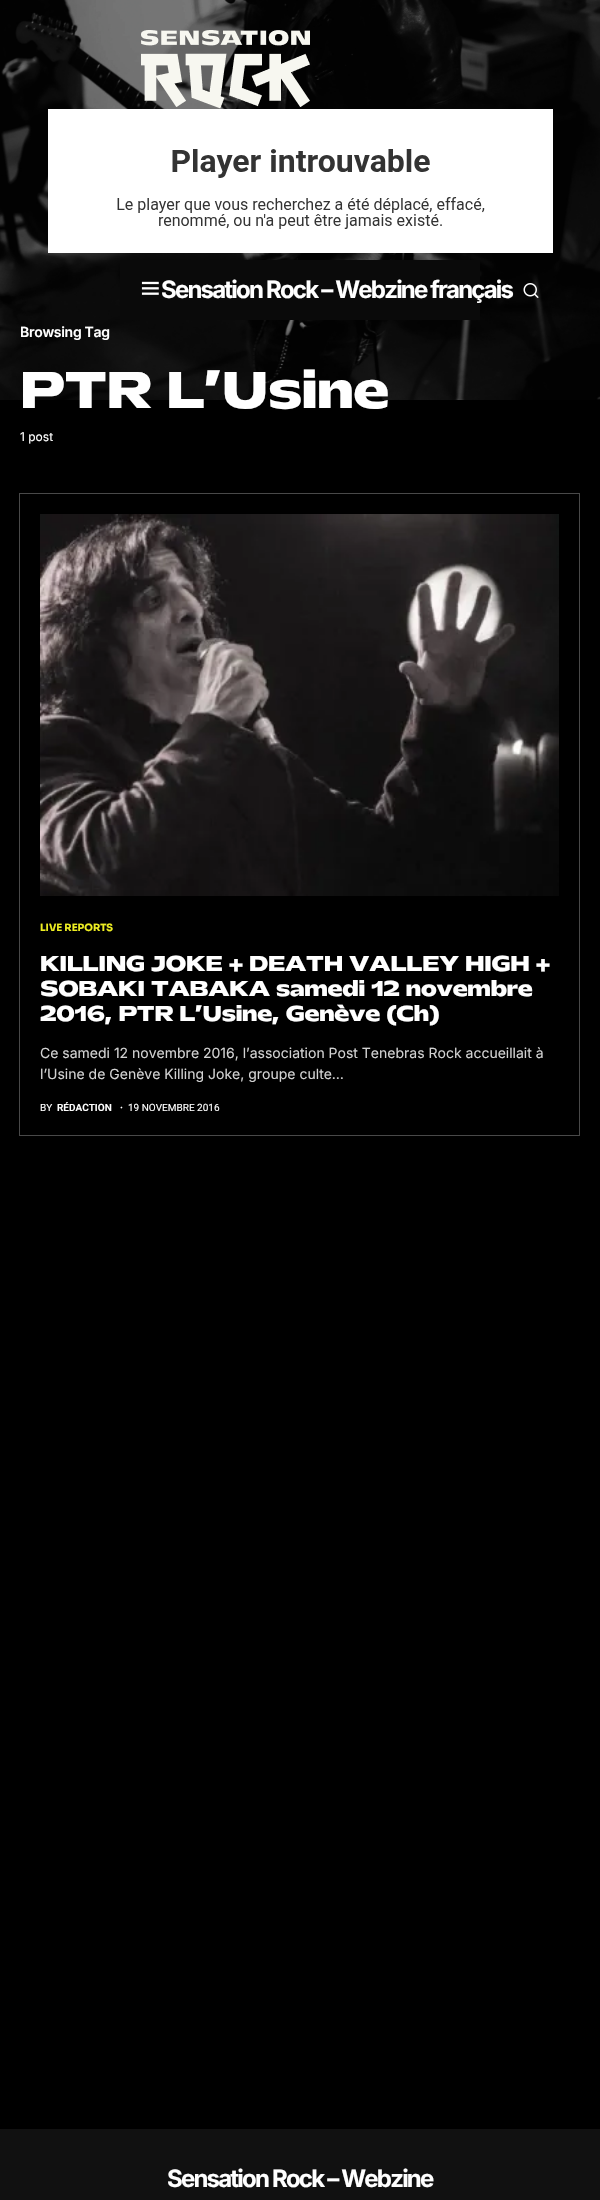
#include "include/core/SkBlurTypes.h"
#include "include/core/SkCanvas.h"
#include "include/core/SkData.h"
#include "include/core/SkFont.h"
#include "include/core/SkFontMgr.h"
#include "include/core/SkImage.h"
#include "include/core/SkMaskFilter.h"
#include "include/core/SkPaint.h"
#include "include/core/SkPathBuilder.h"
#include "include/core/SkTextBlob.h"
#include "include/effects/SkDashPathEffect.h"
#include "include/effects/SkGradientShader.h"
#include "include/utils/SkParsePath.h"

extern sk_sp<SkFontMgr> fontMgr;

void draw(SkCanvas* canvas) {
    SkPaint p;
    p.setAntiAlias(true);
    auto font = [&](const char* family, int weight, float size, bool italic = false) {
        SkFontStyle style(weight, SkFontStyle::kNormal_Width,
            italic ? SkFontStyle::kItalic_Slant : SkFontStyle::kUpright_Slant);
        SkFont result(fontMgr->matchFamilyStyle(family, style), size);
        result.setSubpixel(true);
        return result;
    };
    auto drawTracked = [&](const char* s, float x, float y, const SkFont& font, const SkPaint& ink, float letter, float word) {
        std::vector<SkGlyphID> glyphs(font.countText(s, strlen(s), SkTextEncoding::kUTF8));
        std::vector<float> xs(glyphs.size());
        font.textToGlyphs(s, strlen(s), SkTextEncoding::kUTF8, glyphs);
        font.getXPos(glyphs, xs, x);
        float extra = 0;
        for (size_t i = 0; i < glyphs.size(); i++) {
            xs[i] += extra;
            extra += letter + word * (glyphs[i] == font.unicharToGlyph(' '));
        }
        canvas->drawTextBlob(SkTextBlob::MakeFromPosHGlyphs(glyphs, xs, y, font), 0, 0, ink);
    };
    auto drawPhoto = [&](const char* path, float l, float t, float r, float b) {
        auto image = SkImages::DeferredFromEncodedData(SkData::MakeFromFileName(path));
        canvas->drawImageRect(image, SkRect::MakeLTRB(l, t, r, b), SkSamplingOptions());
    };
    canvas->clear(0xFF000000);
    drawPhoto("media/1.png", 0, 0, 600, 400);
    drawPhoto("media/2.png", 141, 30, 310, 109);
    drawPhoto("media/3.png", 48, 109, 553, 253);
    p.setColor(0xFF0A0A0A);
    canvas->drawRect(SkRect::MakeLTRB(120, 260, 480, 320), p);
    drawPhoto("media/4.png", 141, 281, 159, 295);
    auto font1 = font("Inter", 700, 24);
    p.setColor(0xFFFFFFFF);
    drawTracked("Sensation Rock – Webzine français", 161, 298, font1, p, -1.8f, 0);
    drawPhoto("media/5.png", 523, 283, 539, 298);
    auto font2 = font("Inter", 600, 14);
    drawTracked("Browsing Tag", 20, 337, font2, p, -0.3f, 0);
    auto font3 = font("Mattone", 700, 48);
    drawTracked("PTR L’Usine", 20, 408, font3, p, -0.6f, 0);
    auto font4 = font("Inter", 400, 12);
    canvas->drawString("1 post", 20, 441, font4, p);
    p.setStyle(SkPaint::kStroke_Style);
    p.setStrokeWidth(1);
    p.setColor(0xFF494949);
    canvas->drawRect(SkRect::MakeLTRB(19.5f, 493.5f, 579.5f, 1135.5f), p);
    drawPhoto("media/6.png", 40, 514, 559, 896);
    auto font5 = font("Sora", 700, 10);
    p.setStyle(SkPaint::kFill_Style);
    p.setColor(0xFFEEEE22);
    canvas->drawString("LIVE REPORTS", 40, 931, font5, p);
    auto font6 = font("Mattone", 700, 20);
    p.setColor(0xFFFFFFFF);
    {
        const struct { const char* s; float x, y; } items[] = {
            {"KILLING JOKE + DEATH VALLEY HIGH +", 40, 971},
            {"SOBAKI TABAKA samedi 12 novembre", 40, 996},
            {"2016, PTR L’Usine, Genève (Ch)", 40, 1021},
        };
        for (auto [s, x, y] : items) {
            drawTracked(s, x, y, font6, p, -0.25f, 0);
        }
    }
    auto font7 = font("Inter", 400, 14);
    p.setColor(0xFFD2D2D2);
    canvas->drawString("Ce samedi 12 novembre 2016, l’association Post Tenebras Rock accueillait à", 40, 1058, font7, p);
    canvas->drawString("l’Usine de Genève Killing Joke, groupe culte…", 40, 1079, font7, p);
    auto font8 = font("Roboto", 400, 10);
    p.setColor(0xFFFFFFFF);
    canvas->drawString("BY", 40, 1111, font8, p);
    auto font9 = font("Roboto", 600, 10);
    canvas->drawString("RÉDACTION", 57, 1111, font9, p);
    canvas->drawString("·", 120, 1111, font9, p);
    canvas->drawString("19 NOVEMBRE 2016", 128, 1111, font8, p);
    p.setColor(0xFF111111);
    canvas->drawRect(SkRect::MakeLTRB(0, 2129, 600, 2200), p);
    p.setColor(0xFFFFFFFF);
    drawTracked("Sensation Rock – Webzine", 167, 2187, font1, p, -1.8f, 0);
}
